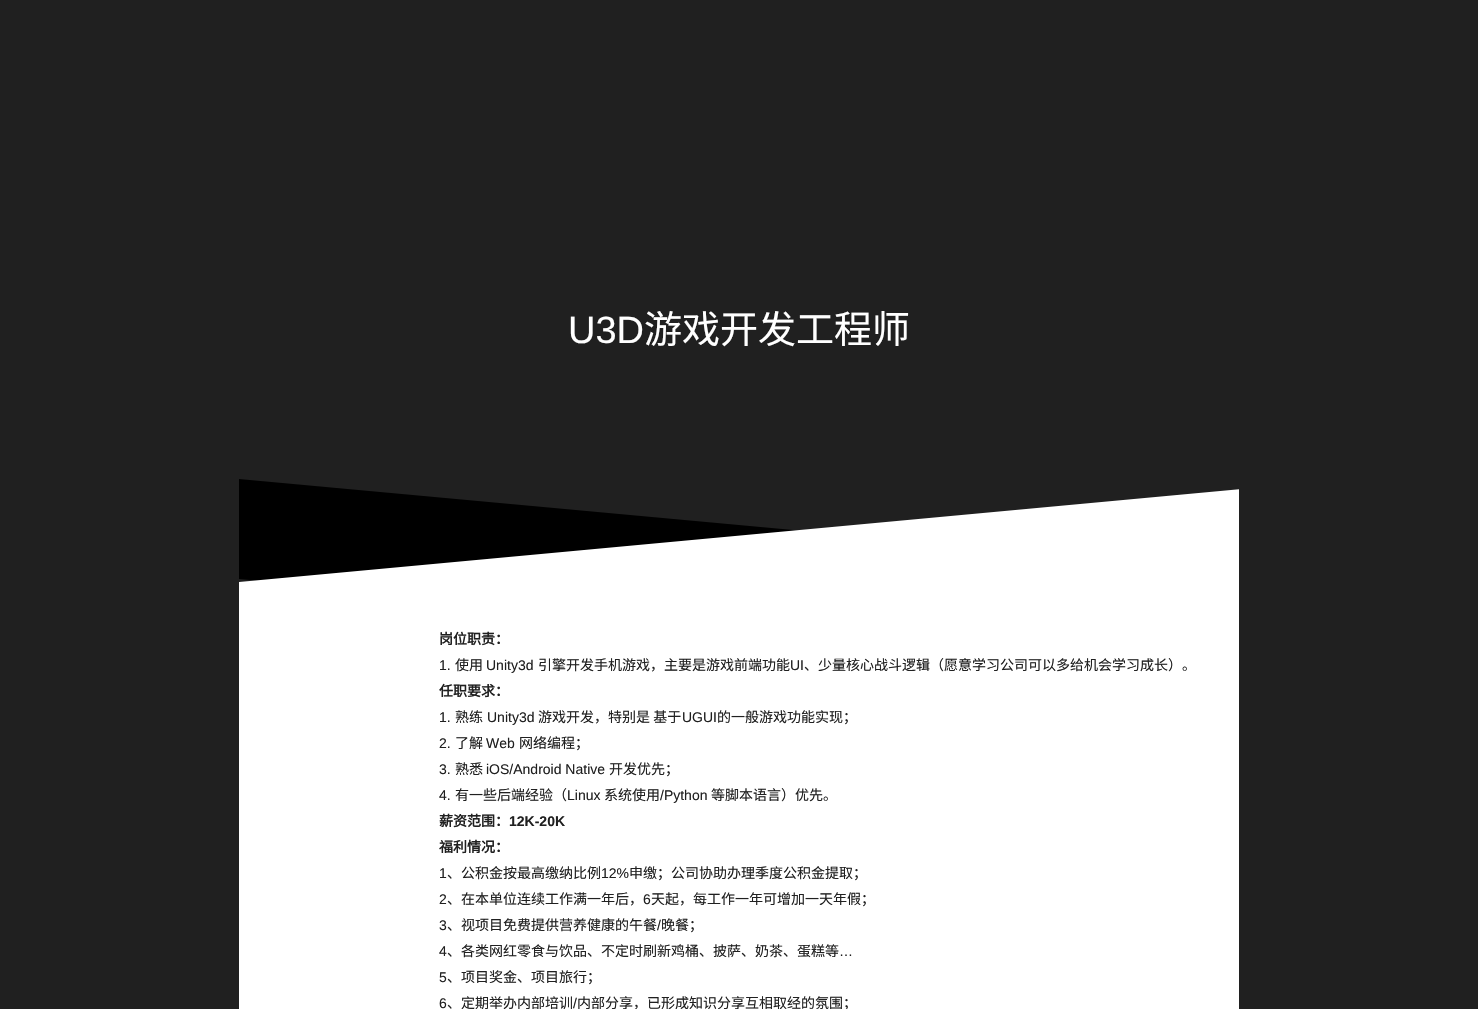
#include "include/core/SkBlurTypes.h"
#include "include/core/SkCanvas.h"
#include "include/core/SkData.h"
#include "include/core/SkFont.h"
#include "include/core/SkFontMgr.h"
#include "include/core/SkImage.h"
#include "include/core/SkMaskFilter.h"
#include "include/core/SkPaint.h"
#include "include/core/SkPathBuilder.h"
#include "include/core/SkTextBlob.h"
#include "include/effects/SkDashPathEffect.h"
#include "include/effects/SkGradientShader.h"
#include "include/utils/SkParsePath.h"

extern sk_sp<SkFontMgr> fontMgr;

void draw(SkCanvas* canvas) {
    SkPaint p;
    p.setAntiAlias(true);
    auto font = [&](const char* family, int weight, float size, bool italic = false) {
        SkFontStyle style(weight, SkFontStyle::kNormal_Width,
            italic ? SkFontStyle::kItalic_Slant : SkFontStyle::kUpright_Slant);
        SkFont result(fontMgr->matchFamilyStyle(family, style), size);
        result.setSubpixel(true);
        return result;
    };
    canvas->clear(0xFF202020);
    auto font1 = font("Liberation Sans", 400, 38);
    p.setColor(0xFFFFFFFF);
    canvas->drawString("U3D", 568, 343, font1, p);
    auto font2 = font("Noto Sans CJK SC", 400, 38);
    canvas->drawString("游戏开发工程师", 644, 343, font2, p);
    p.setColor(0xFF000000);
    canvas->drawPath(SkPathBuilder().moveTo(239, 479).lineTo(1239, 571).lineTo(1239, 671).lineTo(239, 579).close().detach(), p);
    canvas->save();
    canvas->clipRect(SkRect::MakeLTRB(239, 0, 1239, 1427));
    p.setColor(0xFFFFFFFF);
    canvas->drawPath(SkPathBuilder().moveTo(239, 582).lineTo(1339, 480).lineTo(1339, 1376).lineTo(239, 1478).close().detach(), p);
    canvas->restore();
    auto font3 = font("Noto Sans CJK SC", 700, 14);
    p.setColor(0xFF202020);
    canvas->drawString("岗位职责：", 439, 644, font3, p);
    auto font4 = font("Liberation Sans", 400, 14);
    canvas->drawString("1.", 439, 670, font4, p);
    auto font5 = font("Noto Sans CJK SC", 400, 14);
    canvas->drawString("使用", 455, 670, font5, p);
    canvas->drawString("Unity3d", 486, 670, font4, p);
    canvas->drawString("引擎开发手机游戏，主要是游戏前端功能", 538, 670, font5, p);
    canvas->drawString("UI", 790, 670, font4, p);
    canvas->drawString("、少量核心战斗逻辑（愿意学习公司可以多给机会学习成长）。", 804, 670, font5, p);
    canvas->drawString("任职要求：", 439, 696, font3, p);
    canvas->drawString("1.", 439, 722, font4, p);
    canvas->drawString("熟练", 455, 722, font5, p);
    canvas->drawString("Unity3d", 487, 722, font4, p);
    canvas->drawString("游戏开发，特别是 基于", 538, 722, font5, p);
    canvas->drawString("UGUI", 682, 722, font4, p);
    canvas->drawString("的一般游戏功能实现；", 717, 722, font5, p);
    canvas->drawString("2.", 439, 748, font4, p);
    canvas->drawString("了解", 455, 748, font5, p);
    canvas->drawString("Web", 486, 748, font4, p);
    canvas->drawString("网络编程；", 519, 748, font5, p);
    canvas->drawString("3.", 439, 774, font4, p);
    canvas->drawString("熟悉", 455, 774, font5, p);
    canvas->drawString("iOS/Android Native", 486, 774, font4, p);
    canvas->drawString("开发优先；", 609, 774, font5, p);
    canvas->drawString("4.", 439, 800, font4, p);
    canvas->drawString("有一些后端经验（", 455, 800, font5, p);
    canvas->drawString("Linux", 567, 800, font4, p);
    canvas->drawString("系统使用", 604, 800, font5, p);
    canvas->drawString("/Python", 660, 800, font4, p);
    canvas->drawString("等脚本语言）优先。", 711, 800, font5, p);
    canvas->drawString("薪资范围：", 439, 826, font3, p);
    auto font6 = font("Liberation Sans", 700, 14);
    canvas->drawString("12K-20K", 509, 826, font6, p);
    canvas->drawString("福利情况：", 439, 852, font3, p);
    canvas->drawString("1", 439, 878, font4, p);
    canvas->drawString("、公积金按最高缴纳比例", 447, 878, font5, p);
    canvas->drawString("12%", 601, 878, font4, p);
    canvas->drawString("申缴；公司协助办理季度公积金提取；", 629, 878, font5, p);
    canvas->drawString("2", 439, 904, font4, p);
    canvas->drawString("、在本单位连续工作满一年后，", 447, 904, font5, p);
    canvas->drawString("6", 643, 904, font4, p);
    canvas->drawString("天起，每工作一年可增加一天年假；", 651, 904, font5, p);
    canvas->drawString("3", 439, 930, font4, p);
    canvas->drawString("、视项目免费提供营养健康的午餐", 447, 930, font5, p);
    canvas->drawString("/", 657, 930, font4, p);
    canvas->drawString("晚餐；", 661, 930, font5, p);
    canvas->drawString("4", 439, 956, font4, p);
    canvas->drawString("、各类网红零食与饮品、不定时刷新鸡桶、披萨、奶茶、蛋糕等", 447, 956, font5, p);
    canvas->drawString("…", 839, 956, font4, p);
    canvas->drawString("5", 439, 982, font4, p);
    canvas->drawString("、项目奖金、项目旅行；", 447, 982, font5, p);
    canvas->drawString("6", 439, 1008, font4, p);
    canvas->drawString("、定期举办内部培训", 447, 1008, font5, p);
    canvas->drawString("/", 573, 1008, font4, p);
    canvas->drawString("内部分享，已形成知识分享互相取经的氛围；", 577, 1008, font5, p);
}
